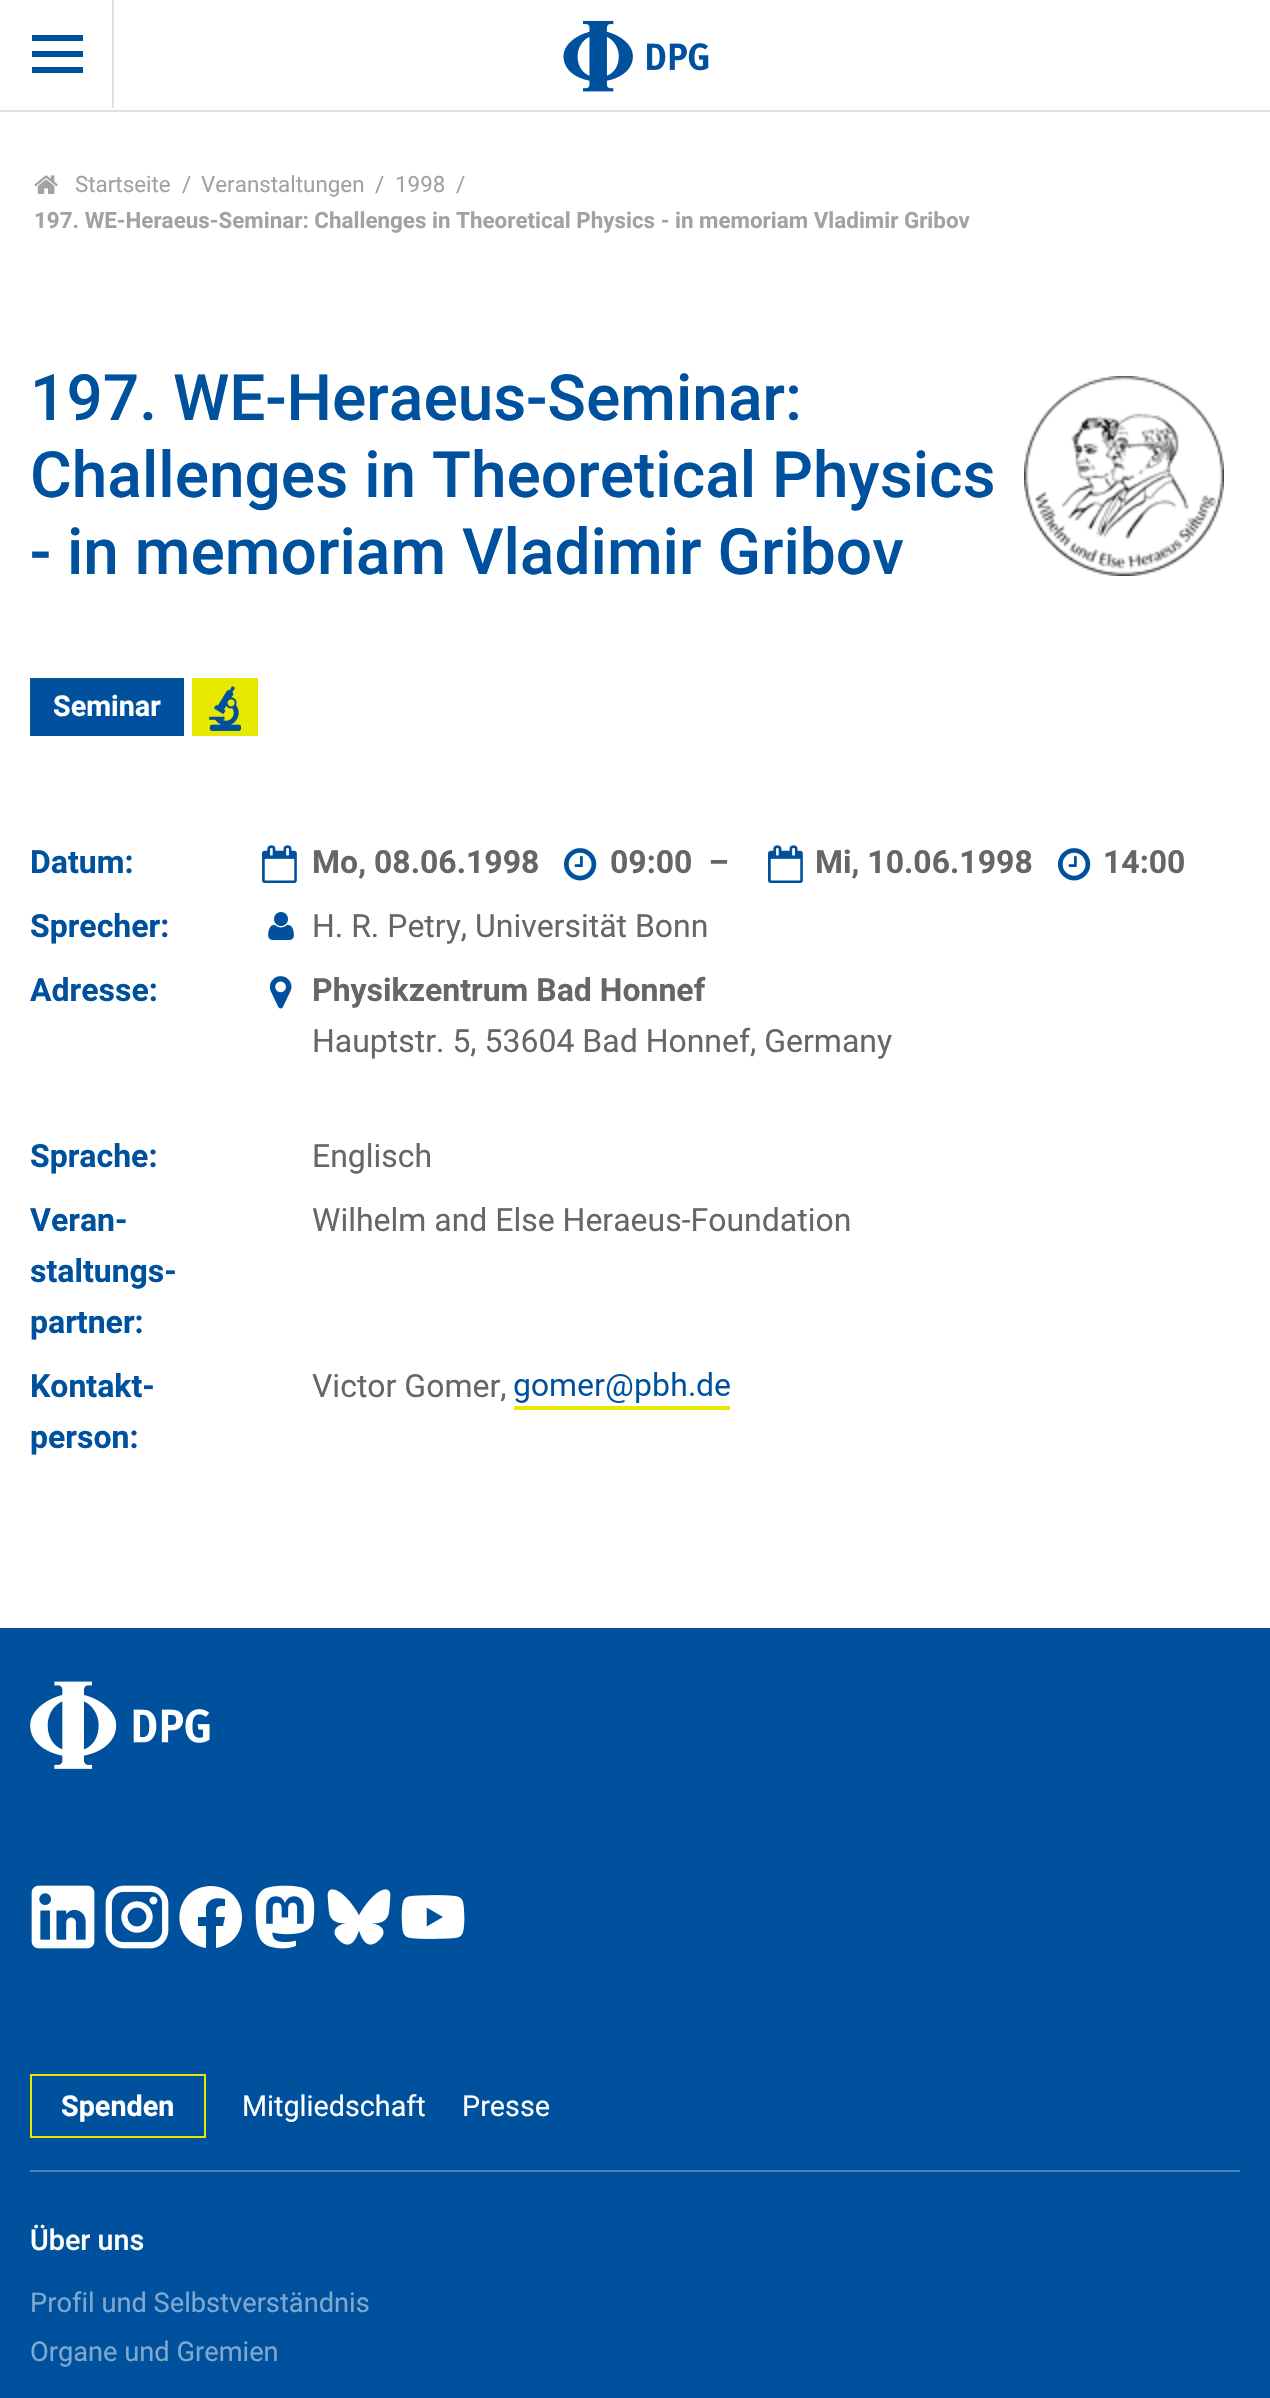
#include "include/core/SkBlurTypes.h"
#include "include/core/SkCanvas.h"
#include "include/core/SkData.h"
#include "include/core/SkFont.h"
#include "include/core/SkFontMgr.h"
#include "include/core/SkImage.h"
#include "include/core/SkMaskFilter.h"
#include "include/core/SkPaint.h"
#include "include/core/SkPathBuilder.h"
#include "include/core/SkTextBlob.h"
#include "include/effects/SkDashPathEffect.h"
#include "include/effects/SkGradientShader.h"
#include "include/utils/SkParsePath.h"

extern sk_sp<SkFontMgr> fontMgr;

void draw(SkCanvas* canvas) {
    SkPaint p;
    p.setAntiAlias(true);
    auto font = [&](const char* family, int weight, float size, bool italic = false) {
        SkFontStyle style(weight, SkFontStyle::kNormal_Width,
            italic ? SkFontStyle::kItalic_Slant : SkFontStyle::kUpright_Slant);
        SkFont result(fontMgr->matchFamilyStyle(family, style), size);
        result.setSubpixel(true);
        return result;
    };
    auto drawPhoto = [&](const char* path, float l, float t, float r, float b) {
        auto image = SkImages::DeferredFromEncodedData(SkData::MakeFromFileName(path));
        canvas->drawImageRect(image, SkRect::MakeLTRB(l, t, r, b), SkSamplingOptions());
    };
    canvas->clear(0xFFFFFFFF);
    {
        const struct { float l, t, r, b; SkColor color; } items[] = {
            {0, 110, 1270, 112, 0xFFDFDFDF},
            {112, 0, 114, 108, 0xFFDFDFDF},
            {32, 35, 83, 41, 0xFF00519D},
            {32, 51, 83, 57, 0xFF00519D},
            {32, 67, 83, 73, 0xFF00519D},
        };
        for (auto [l, t, r, b, color] : items) {
            p.setColor(color);
            canvas->drawRect(SkRect::MakeLTRB(l, t, r, b), p);
        }
    }
    drawPhoto("media/1.png", 563, 20, 709, 92);
    drawPhoto("media/2.png", 34, 175, 58, 194);
    auto font1 = font("Roboto", 400, 22.4f);
    p.setColor(0xFFA2A2A2);
    {
        const struct { const char* s; float x, y; } items[] = {
            {"Startseite", 75, 192},
            {"/", 182, 192},
            {"Veranstaltungen", 201, 192},
            {"/", 375, 192},
            {"1998", 395, 192},
            {"/", 456, 192},
        };
        for (auto [s, x, y] : items) {
            canvas->drawString(s, x, y, font1, p);
        }
    }
    auto font2 = font("Roboto", 700, 22.4f);
    canvas->drawString("197. WE-Heraeus-Seminar: Challenges in Theoretical Physics - in memoriam Vladimir Gribov", 34, 228, font2, p);
    auto font3 = font("Roboto", 500, 64);
    p.setColor(0xFF00519D);
    {
        const struct { const char* s; float x, y; } items[] = {
            {"197. WE-Heraeus-Seminar:", 30, 420},
            {"Challenges in Theoretical Physics", 30, 497},
            {"- in memoriam Vladimir Gribov", 30, 574},
        };
        for (auto [s, x, y] : items) {
            canvas->drawString(s, x, y, font3, p);
        }
    }
    drawPhoto("media/3.png", 1024, 376, 1224, 576);
    canvas->drawRect(SkRect::MakeLTRB(30, 678, 184, 736), p);
    auto font4 = font("Roboto", 700, 28.75f);
    p.setColor(0xFFFFFFFF);
    canvas->drawString("Seminar", 53, 716, font4, p);
    p.setColor(0xFFE8E900);
    canvas->drawRect(SkRect::MakeLTRB(192, 678, 258, 736), p);
    drawPhoto("media/4.png", 209, 686, 241, 731);
    auto font5 = font("Roboto", 700, 32);
    p.setColor(0xFF00519D);
    canvas->drawString("Datum:", 30, 873, font5, p);
    drawPhoto("media/5.png", 262, 845, 297, 883);
    p.setColor(0xFF666666);
    canvas->drawString("Mo, 08.06.1998", 312, 873, font5, p);
    drawPhoto("media/6.png", 564, 848, 597, 881);
    canvas->drawString("09:00  –", 610, 873, font5, p);
    drawPhoto("media/5.png", 768, 845, 803, 883);
    canvas->drawString("Mi, 10.06.1998", 815, 873, font5, p);
    drawPhoto("media/6.png", 1058, 848, 1091, 881);
    canvas->drawString("14:00", 1103, 873, font5, p);
    p.setColor(0xFF00519D);
    canvas->drawString("Sprecher:", 30, 937, font5, p);
    drawPhoto("media/7.png", 268, 912, 294, 940);
    auto font6 = font("Roboto", 400, 32);
    p.setColor(0xFF666666);
    canvas->drawString("H. R. Petry, Universität Bonn", 312, 937, font6, p);
    p.setColor(0xFF00519D);
    canvas->drawString("Adresse:", 30, 1001, font5, p);
    drawPhoto("media/8.png", 269, 976, 292, 1009);
    p.setColor(0xFF666666);
    canvas->drawString("Physikzentrum Bad Honnef", 312, 1001, font5, p);
    canvas->drawString("Hauptstr. 5, 53604 Bad Honnef, Germany", 312, 1052, font6, p);
    p.setColor(0xFF00519D);
    canvas->drawString("Sprache:", 30, 1167, font5, p);
    p.setColor(0xFF666666);
    canvas->drawString("Englisch", 312, 1167, font6, p);
    p.setColor(0xFF00519D);
    {
        const struct { const char* s; float x, y; } items[] = {
            {"Veran-", 30, 1231},
            {"staltungs-", 30, 1282},
            {"partner:", 30, 1333},
        };
        for (auto [s, x, y] : items) {
            canvas->drawString(s, x, y, font5, p);
        }
    }
    p.setColor(0xFF666666);
    canvas->drawString("Wilhelm and Else Heraeus-Foundation", 312, 1231, font6, p);
    p.setColor(0xFF00519D);
    canvas->drawString("Kontakt-", 30, 1397, font5, p);
    canvas->drawString("person:", 30, 1448, font5, p);
    p.setColor(0xFF666666);
    canvas->drawString("Victor Gomer,", 312, 1397, font6, p);
    drawPhoto("media/9.png", 514, 1372, 730, 1403);
    {
        const struct { float l, t, r, b; SkColor color; } items[] = {
            {514, 1406, 730, 1410, 0xFFE8E900},
            {0, 1628, 1270, 2398, 0xFF00519D},
            {30, 2170, 1240, 2172, 0xFF4D85BA},
        };
        for (auto [l, t, r, b, color] : items) {
            p.setColor(color);
            canvas->drawRect(SkRect::MakeLTRB(l, t, r, b), p);
        }
    }
    drawPhoto("media/10.png", 30, 1681, 210, 1769);
    drawPhoto("media/11.png", 31, 1885, 95, 1949);
    drawPhoto("media/12.png", 105, 1885, 169, 1949);
    p.setColor(0xFFFFFFFF);
    canvas->drawPath(SkPathBuilder(SkPathFillType::kEvenOdd).moveTo(211, 1886).cubicTo(172, 1886, 168, 1942, 206, 1948).lineTo(206, 1926).lineTo(198, 1926).lineTo(198, 1917).lineTo(206, 1917).lineTo(206, 1907).cubicTo(208, 1898, 217, 1897, 225, 1899).lineTo(225, 1906).cubicTo(215, 1906, 216, 1908, 216, 1917).lineTo(225, 1917).lineTo(223, 1926).lineTo(216, 1926).lineTo(216, 1948).cubicTo(254, 1942, 249, 1886, 211, 1886).close().detach(), p);
    drawPhoto("media/13.png", 255, 1885, 315, 1949);
    drawPhoto("media/14.png", 327, 1889, 391, 1945);
    drawPhoto("media/15.png", 401, 1895, 465, 1939);
    p.setStyle(SkPaint::kStroke_Style);
    p.setStrokeWidth(2);
    p.setColor(0xFFE8E900);
    canvas->drawRect(SkRect::MakeLTRB(31, 2075, 205, 2137), p);
    p.setStyle(SkPaint::kFill_Style);
    p.setColor(0xFFFFFFFF);
    canvas->drawString("Spenden", 61, 2116, font4, p);
    auto font7 = font("Roboto", 400, 28.75f);
    canvas->drawString("Mitgliedschaft", 242, 2116, font7, p);
    canvas->drawString("Presse", 462, 2116, font7, p);
    auto font8 = font("Roboto", 500, 28.75f);
    canvas->drawString("Über uns", 30, 2250, font8, p);
    auto font9 = font("Roboto", 400, 27.25f);
    p.setColor(0xFF80A8CE);
    canvas->drawString("Profil und Selbstverständnis", 30, 2312, font9, p);
    canvas->drawString("Organe und Gremien", 30, 2361, font9, p);
}
